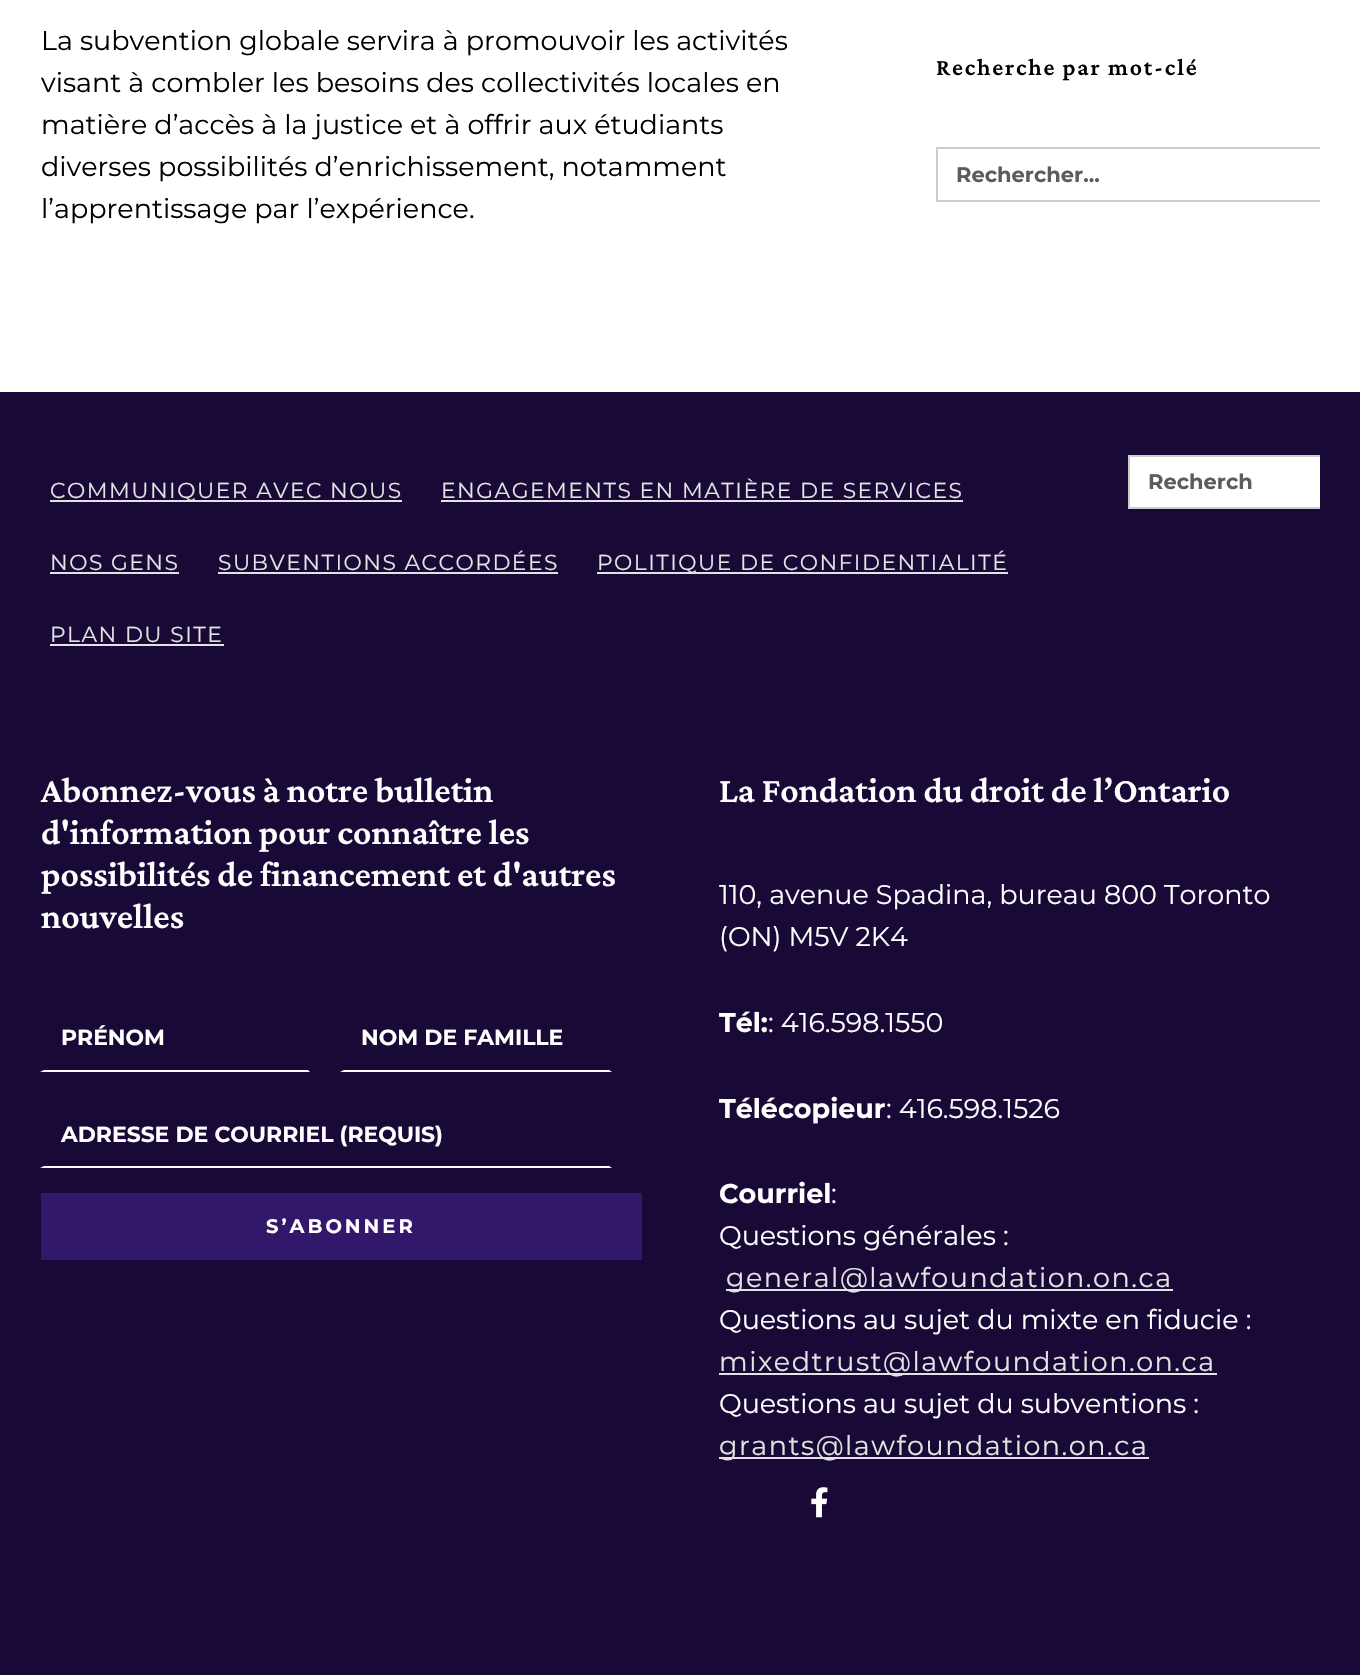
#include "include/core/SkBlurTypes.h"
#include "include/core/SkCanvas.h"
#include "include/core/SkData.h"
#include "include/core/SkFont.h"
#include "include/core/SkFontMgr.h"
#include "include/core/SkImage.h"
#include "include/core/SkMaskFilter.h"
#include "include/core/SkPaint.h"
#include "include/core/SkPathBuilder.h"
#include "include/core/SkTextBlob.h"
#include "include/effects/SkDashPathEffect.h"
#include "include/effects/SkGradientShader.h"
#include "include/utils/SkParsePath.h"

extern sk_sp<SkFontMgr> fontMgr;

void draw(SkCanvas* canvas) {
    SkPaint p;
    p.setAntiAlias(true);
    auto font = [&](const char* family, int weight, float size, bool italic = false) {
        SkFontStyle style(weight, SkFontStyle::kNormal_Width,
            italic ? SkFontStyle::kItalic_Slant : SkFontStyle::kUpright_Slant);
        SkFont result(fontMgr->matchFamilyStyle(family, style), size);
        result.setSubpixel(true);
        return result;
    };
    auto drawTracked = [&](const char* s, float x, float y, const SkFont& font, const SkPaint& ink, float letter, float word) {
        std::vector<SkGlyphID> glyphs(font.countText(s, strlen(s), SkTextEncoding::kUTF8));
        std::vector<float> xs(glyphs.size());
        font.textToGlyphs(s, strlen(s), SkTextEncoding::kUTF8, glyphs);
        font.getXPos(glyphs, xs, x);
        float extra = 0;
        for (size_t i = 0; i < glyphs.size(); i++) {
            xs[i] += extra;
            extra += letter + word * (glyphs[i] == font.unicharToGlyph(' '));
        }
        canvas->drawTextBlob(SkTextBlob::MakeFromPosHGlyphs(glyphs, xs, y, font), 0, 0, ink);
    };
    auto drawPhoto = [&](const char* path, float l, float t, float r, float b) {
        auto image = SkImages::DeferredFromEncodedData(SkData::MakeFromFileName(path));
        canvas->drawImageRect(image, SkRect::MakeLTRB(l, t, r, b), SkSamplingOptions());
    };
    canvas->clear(0xFFFFFFFF);
    auto font1 = font("Montserrat", 400, 27);
    p.setColor(0xFF000000);
    {
        const struct { const char* s; float x, y; } items[] = {
            {"La subvention globale servira à promouvoir les activités", 41, 50},
            {"visant à combler les besoins des collectivités locales en", 41, 92},
            {"matière d’accès à la justice et à offrir aux étudiants", 41, 134},
            {"diverses possibilités d’enrichissement, notamment", 41, 176},
            {"l’apprentissage par l’expérience.", 41, 218},
        };
        for (auto [s, x, y] : items) {
            canvas->drawString(s, x, y, font1, p);
        }
    }
    auto font2 = font("Crimson Pro", 600, 24);
    drawTracked("Recherche par mot-clé", 936, 75, font2, p, 1.8f, 0);
    {
        const struct { float l, t, r, b; SkColor color; } items[] = {
            {936, 147, 1320, 149, 0xFFCCCCCC},
            {936, 200, 1320, 202, 0xFFCCCCCC},
            {936, 147, 938, 201, 0xFFCCCCCC},
        };
        for (auto [l, t, r, b, color] : items) {
            p.setColor(color);
            canvas->drawRect(SkRect::MakeLTRB(l, t, r, b), p);
        }
    }
    auto font3 = font("Montserrat", 700, 21);
    p.setColor(0xFF5C5C5C);
    canvas->drawString("Rechercher...", 956, 182, font3, p);
    p.setColor(0xFF190936);
    canvas->drawRect(SkRect::MakeLTRB(0, 392, 1360, 1675), p);
    p.setColor(0xFFE4E3E3);
    canvas->drawRect(SkRect::MakeLTRB(50, 500, 402, 502), p);
    auto font4 = font("Montserrat", 400, 21.75f);
    drawTracked("COMMUNIQUER AVEC NOUS", 50, 498, font4, p, 1.5f, 0);
    drawTracked("ENGAGEMENTS EN MATIÈRE DE SERVICES", 441, 498, font4, p, 1.5f, 0);
    canvas->drawRect(SkRect::MakeLTRB(441, 500, 963, 502), p);
    drawTracked("NOS GENS", 50, 570, font4, p, 1.5f, 0);
    canvas->drawRect(SkRect::MakeLTRB(50, 572, 179, 574), p);
    drawTracked("SUBVENTIONS ACCORDÉES", 218, 570, font4, p, 1.5f, 0);
    canvas->drawRect(SkRect::MakeLTRB(218, 572, 558, 574), p);
    canvas->drawRect(SkRect::MakeLTRB(597, 572, 1008, 574), p);
    drawTracked("POLITIQUE DE CONFIDENTIALITÉ", 597, 570, font4, p, 1.5f, 0);
    drawTracked("PLAN DU SITE", 50, 642, font4, p, 1.5f, 0);
    {
        const struct { float l, t, r, b; SkColor color; } items[] = {
            {50, 644, 224, 646, 0xFFE4E3E3},
            {1130, 457, 1320, 507, 0xFFFFFFFF},
            {1128, 455, 1320, 457, 0xFFCCCCCC},
            {1128, 507, 1320, 509, 0xFFCCCCCC},
            {1128, 455, 1130, 509, 0xFFCCCCCC},
        };
        for (auto [l, t, r, b, color] : items) {
            p.setColor(color);
            canvas->drawRect(SkRect::MakeLTRB(l, t, r, b), p);
        }
    }
    p.setColor(0xFF5C5C5C);
    canvas->drawString("Recherch", 1148, 489, font3, p);
    auto font5 = font("Crimson Pro", 600, 36);
    p.setColor(0xFFFFFFFF);
    {
        const struct { const char* s; float x, y; } items[] = {
            {"Abonnez-vous à notre bulletin", 41, 802},
            {"d'information pour connaître les", 41, 844},
            {"possibilités de financement et d'autres", 41, 886},
            {"nouvelles", 41, 928},
        };
        for (auto [s, x, y] : items) {
            canvas->drawString(s, x, y, font5, p);
        }
    }
    canvas->drawPath(SkPathBuilder().moveTo(310, 1072).lineTo(40, 1072).lineTo(44, 1070).lineTo(308, 1070).close().detach(), p);
    auto font6 = font("Montserrat", 700, 21.9f);
    canvas->drawString("PRÉNOM", 61, 1045, font6, p);
    canvas->drawPath(SkPathBuilder().moveTo(612, 1072).lineTo(340, 1072).lineTo(344, 1070).lineTo(609, 1070).close().detach(), p);
    canvas->drawString("NOM DE FAMILLE", 361, 1045, font6, p);
    canvas->drawPath(SkPathBuilder().moveTo(612, 1168).lineTo(40, 1168).lineTo(44, 1166).lineTo(609, 1166).close().detach(), p);
    canvas->drawString("ADRESSE DE COURRIEL (REQUIS)", 61, 1142, font6, p);
    p.setColor(0xFF32186A);
    canvas->drawRect(SkRect::MakeLTRB(41, 1193, 642, 1260), p);
    auto font7 = font("Montserrat", 700, 19.5f);
    p.setColor(0xFFFFFFFF);
    drawTracked("S’ABONNER", 266, 1233, font7, p, 3, 0);
    canvas->drawString("La Fondation du droit de l’Ontario", 719, 802, font5, p);
    canvas->drawString("110, avenue Spadina, bureau 800 Toronto", 719, 904, font1, p);
    canvas->drawString("(ON) M5V 2K4", 719, 946, font1, p);
    auto font8 = font("Montserrat", 700, 27);
    canvas->drawString("Tél:", 719, 1032, font8, p);
    canvas->drawString(": 416.598.1550", 768, 1032, font1, p);
    canvas->drawString("Télécopieur", 719, 1118, font8, p);
    canvas->drawString(": 416.598.1526", 886, 1118, font1, p);
    canvas->drawString("Courriel", 719, 1203, font8, p);
    canvas->drawString(":", 831, 1203, font1, p);
    canvas->drawString("Questions générales :", 719, 1245, font1, p);
    p.setColor(0xFFE4E3E3);
    canvas->drawRect(SkRect::MakeLTRB(726, 1289, 1173, 1291), p);
    drawTracked("general@lawfoundation.on.ca", 726, 1287, font1, p, 1.5f, 0);
    p.setColor(0xFFFFFFFF);
    canvas->drawString("Questions au sujet du mixte en fiducie :", 719, 1329, font1, p);
    p.setColor(0xFFE4E3E3);
    canvas->drawRect(SkRect::MakeLTRB(719, 1373, 1217, 1375), p);
    drawTracked("mixedtrust@lawfoundation.on.ca", 719, 1371, font1, p, 1.5f, 0);
    p.setColor(0xFFFFFFFF);
    canvas->drawString("Questions au sujet du subventions :", 719, 1413, font1, p);
    p.setColor(0xFFE4E3E3);
    canvas->drawRect(SkRect::MakeLTRB(719, 1457, 1149, 1459), p);
    drawTracked("grants@lawfoundation.on.ca", 719, 1455, font1, p, 1.5f, 0);
    drawPhoto("media/1.png", 811, 1487, 828, 1518);
}
